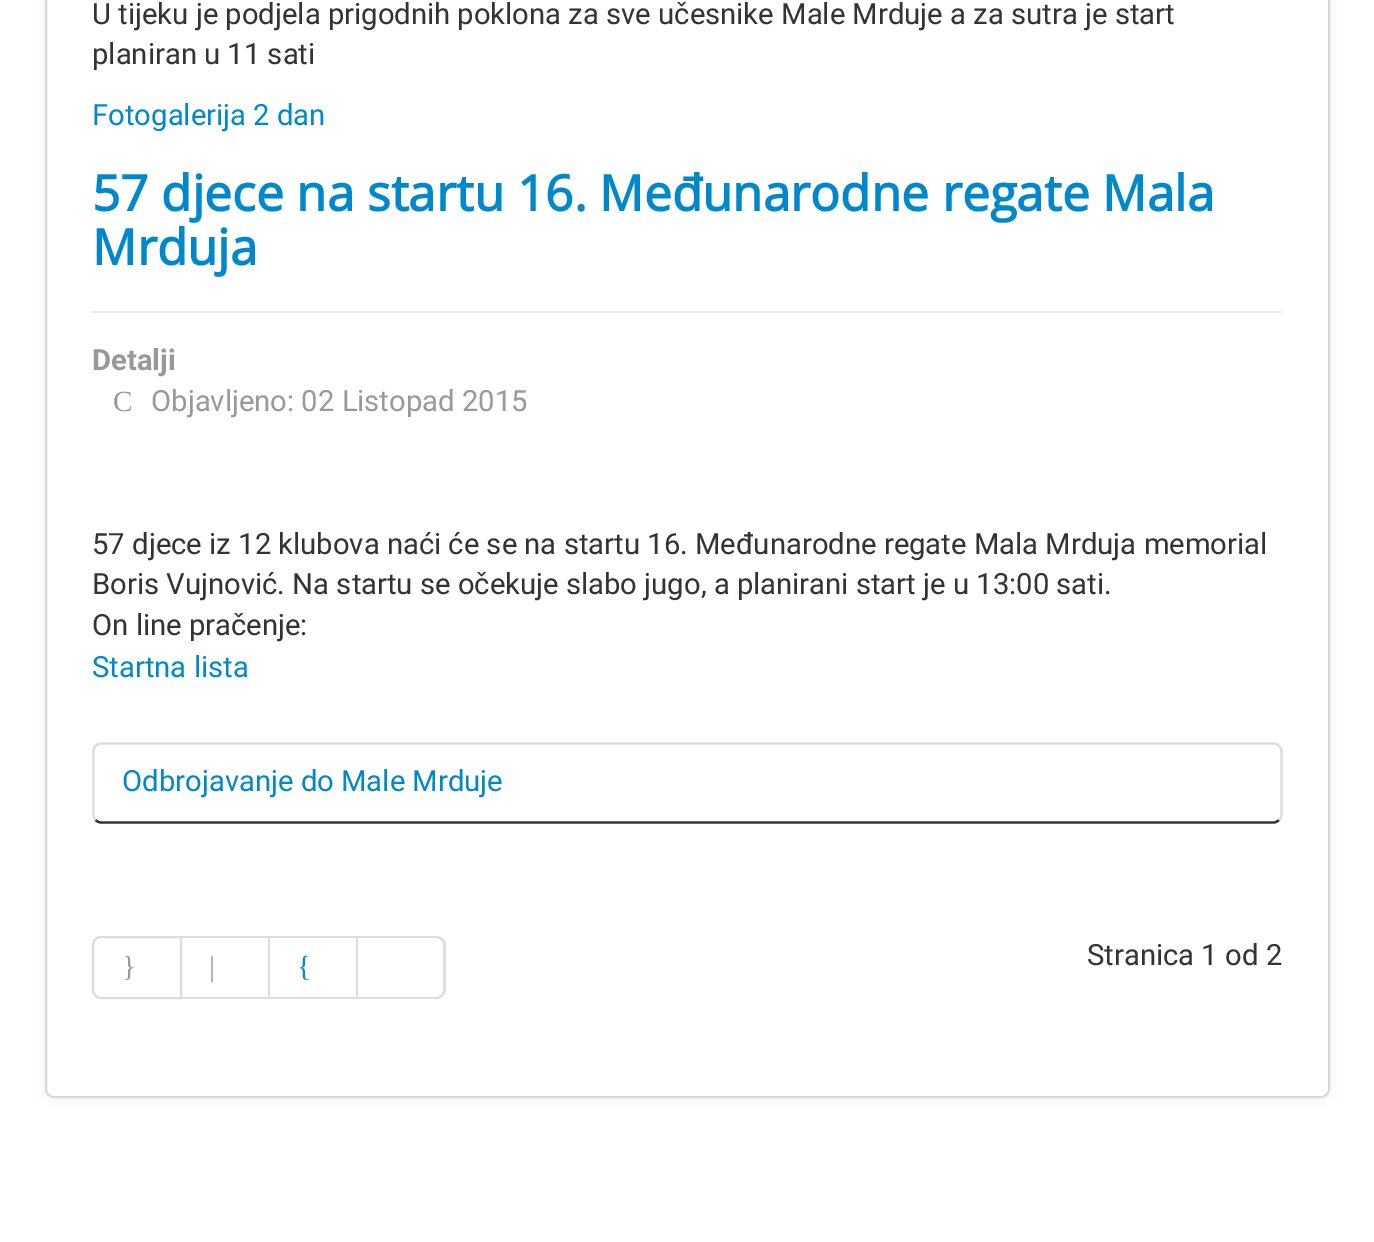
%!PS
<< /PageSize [1374 1242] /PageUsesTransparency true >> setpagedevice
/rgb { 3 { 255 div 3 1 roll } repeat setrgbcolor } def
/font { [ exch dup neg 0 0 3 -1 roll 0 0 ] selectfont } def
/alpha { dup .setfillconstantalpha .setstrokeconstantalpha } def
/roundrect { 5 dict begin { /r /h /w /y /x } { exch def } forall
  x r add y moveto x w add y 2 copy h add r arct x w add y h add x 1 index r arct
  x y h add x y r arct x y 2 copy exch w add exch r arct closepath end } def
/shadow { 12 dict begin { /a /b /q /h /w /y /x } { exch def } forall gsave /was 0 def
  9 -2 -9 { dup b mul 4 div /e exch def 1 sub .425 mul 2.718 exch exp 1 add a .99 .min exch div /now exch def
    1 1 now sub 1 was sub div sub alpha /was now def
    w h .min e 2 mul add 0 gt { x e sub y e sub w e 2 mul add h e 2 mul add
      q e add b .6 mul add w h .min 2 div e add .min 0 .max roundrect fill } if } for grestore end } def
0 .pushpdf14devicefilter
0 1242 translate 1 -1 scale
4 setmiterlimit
255 255 255 rgb
0 0 1374 1242 rectfill
0 0 0 rgb
45 -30 1285 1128 9 7 0.05 shadow
255 255 255 rgb
46 -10 1283 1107 8 roundrect gsave fill grestore
217 217 217 rgb
2 setlinewidth
stroke
238 238 238 rgb
92 311 1191 2 rectfill
51 51 51 rgb
2.2 setlinewidth
1279 820 moveto 1277.5 821.5 1275.5 822.5 1273.5 822.5 curveto 101 822.5 lineto 99 822.5 97 821.5 95.5 820 curveto stroke
221 221 221 rgb
95.5 820 moveto 94 818.5 93.5 816.5 93.5 814.5 curveto 93.5 751.5 lineto 93.5 749.5 94 747.5 95.5 746 curveto 97 744.5 99 743.5 101 743.5 curveto 1273.5 743.5 lineto 1275.5 743.5 1277.5 744.5 1279 746 curveto 1280.5 747.5 1281.5 749.5 1281.5 751.5 curveto 1281.5 814.5 lineto 1281.5 816.5 1280.5 818.5 1279 820 curveto stroke
2 setlinewidth
101 937 moveto 181 937 lineto 181 998 lineto 101 998 lineto 96.5 998 93 994.5 93 990 curveto 93 945 lineto 93 940.5 96.5 937 101 937 curveto closepath stroke
[
  [182 936 176 2 221 221 221]
  [268 936 2 63 221 221 221]
  [182 997 88 2 221 221 221]
  [356 936 2 63 221 221 221]
  [270 997 88 2 221 221 221]
] { aload pop rgb rectfill } forall
358 936 moveto 436 936 lineto 441 936 446 940 446 945 curveto 446 990 lineto 446 995 441 999 436 999 curveto 358 999 lineto closepath 358 938 moveto 436 938 lineto 440 938 443 941 443 945 curveto 443 990 lineto 443 994 440 997 436 997 curveto 358 997 lineto closepath eofill
/Roboto-Regular 29.25 font
51 51 51 rgb
92 24 moveto (U tijeku je podjela prigodnih poklona za sve učesnike Male Mrduje a za sutra je start) show
92 64 moveto (planiran u 11 sati) show
0 136 204 rgb
92 125 moveto (Fotogalerija 2 dan) show
/OpenSans-Bold 49.5 font
92 211 moveto (57 djece na startu 16. Međunarodne regate Mala) show
92 265 moveto (Mrduja) show
/Roboto-Bold 29.25 font
153 153 153 rgb
92 370 moveto (Detalji) show
/LiberationSerif-Regular 29.25 font
113 411 moveto (C) show
/Roboto-Regular 29.25 font
151 411 moveto (Objavljeno: 02 Listopad 2015) show
51 51 51 rgb
[
  [(57 djece iz 12 klubova naći će se na startu 16. Međunarodne regate Mala Mrduja memorial) 92 554]
  [(Boris Vujnović. Na startu se očekuje slabo jugo, a planirani start je u 13:00 sati.) 92 594]
  [(On line pračenje:) 92 635]
] { aload pop moveto show } forall
0 136 204 rgb
92 677 moveto (Startna lista) show
122 791 moveto (Odbrojavanje do Male Mrduje) show
/LiberationSerif-Regular 29.25 font
153 153 153 rgb
122 976 moveto (}) show
209 976 moveto (|) show
0 136 204 rgb
297 976 moveto ({) show
/Roboto-Regular 29.25 font
51 51 51 rgb
1087 965 moveto (Stranica 1 od 2) show
.poppdf14devicefilter showpage
